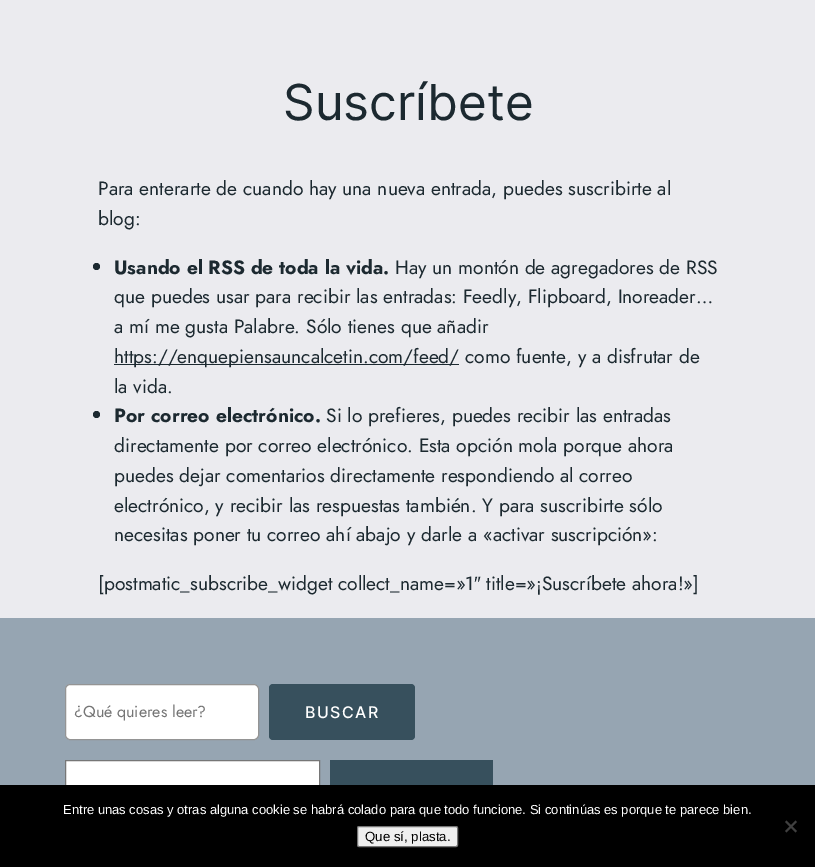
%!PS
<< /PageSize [815 867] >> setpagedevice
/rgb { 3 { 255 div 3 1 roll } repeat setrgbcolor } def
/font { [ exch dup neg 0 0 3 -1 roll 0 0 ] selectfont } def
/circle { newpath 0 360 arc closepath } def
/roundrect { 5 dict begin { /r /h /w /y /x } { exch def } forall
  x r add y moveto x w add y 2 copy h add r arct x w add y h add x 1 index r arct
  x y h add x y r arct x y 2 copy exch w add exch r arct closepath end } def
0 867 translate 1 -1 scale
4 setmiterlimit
235 235 239 rgb
0 0 815 867 rectfill
28 41 48 rgb
96.5 266.5 3.5 circle fill
114 364 345 1 rectfill
96.5 414.5 3.5 circle fill
150 165 178 rgb
0 618 815 167 rectfill
255 255 255 rgb
65.5 684.5 193 55 4.5 roundrect gsave fill grestore
148 148 148 rgb
stroke
55 80 93 rgb
269 684 146 56 4 roundrect fill
255 255 255 rgb
66 761 253 24 rectfill
118 118 118 rgb
65.5 760.5 254 51 rectstroke
55 80 93 rgb
330 760 163 25 rectfill
0 0 0 rgb
0 785 815 82 rectfill
64 64 64 rgb
795.5 820.5 moveto 797 822 lineto 786.5 832.5 lineto 785 831 lineto closepath fill
785 822 moveto 786.5 820.5 lineto 797 831 lineto 795.5 832.5 lineto closepath fill
239 239 239 rgb
357.5 826.5 100 20 1.5 roundrect gsave fill grestore
118 118 118 rgb
stroke
/Inter-Regular 49.5 font
28 41 48 rgb
283 120 moveto (Suscríbete) show
/Jost-Regular 19.2 font
98 195 moveto (Para enterarte de cuando hay una nueva entrada, puedes suscribirte al) show
98 225 moveto (blog:) show
/Jost-Bold 19.2 font
114 274 moveto (Usando el RSS de toda la vida.) show
/Jost-Regular 19.2 font
[
  [(Hay un montón de agregadores de RSS) 395 274]
  [(que puedes usar para recibir las entradas: Feedly, Flipboard, Inoreader…) 114 303]
  [(a mí me gusta Palabre. Sólo tienes que añadir) 114 333]
  [(https://enquepiensauncalcetin.com/feed/ como fuente, y a disfrutar de) 114 363]
  [(la vida.) 114 393]
] { aload pop moveto show } forall
/Jost-Bold 19.2 font
114 422 moveto (Por correo electrónico.) show
/Jost-Regular 19.2 font
[
  [(Si lo prefieres, puedes recibir las entradas) 326 422]
  [(directamente por correo electrónico. Esta opción mola porque ahora) 114 452]
  [(puedes dejar comentarios directamente respondiendo al correo) 114 482]
  [(electrónico, y recibir las respuestas también. Y para suscribirte sólo) 114 512]
  [(necesitas poner tu correo ahí abajo y darle a «activar suscripción»:) 114 541]
  [([postmatic_subscribe_widget collect_name=»1) 98 590]
] { aload pop moveto show } forall
/LiberationSans-Regular 19.2 font
474 590 moveto (″) show
/Jost-Regular 19.2 font
486 590 moveto (title=»¡Suscríbete ahora!»]) show
/Jost-Regular 16 font
117 117 117 rgb
74 717 moveto (¿Qué quieres leer?) show
/Inter-Medium 16 font
255 255 255 rgb
305 718 moveto 1.5 0 (BUSCAR) ashow
/LiberationSans-Regular 13 font
63 814 moveto (Entre unas cosas y otras alguna cookie se habrá colado para que todo funcione. Si continúas es porque te parece bien.) show
/LiberationSans-Regular 13.25 font
0 0 0 rgb
365 841 moveto (Que sí, plasta.) show
showpage
